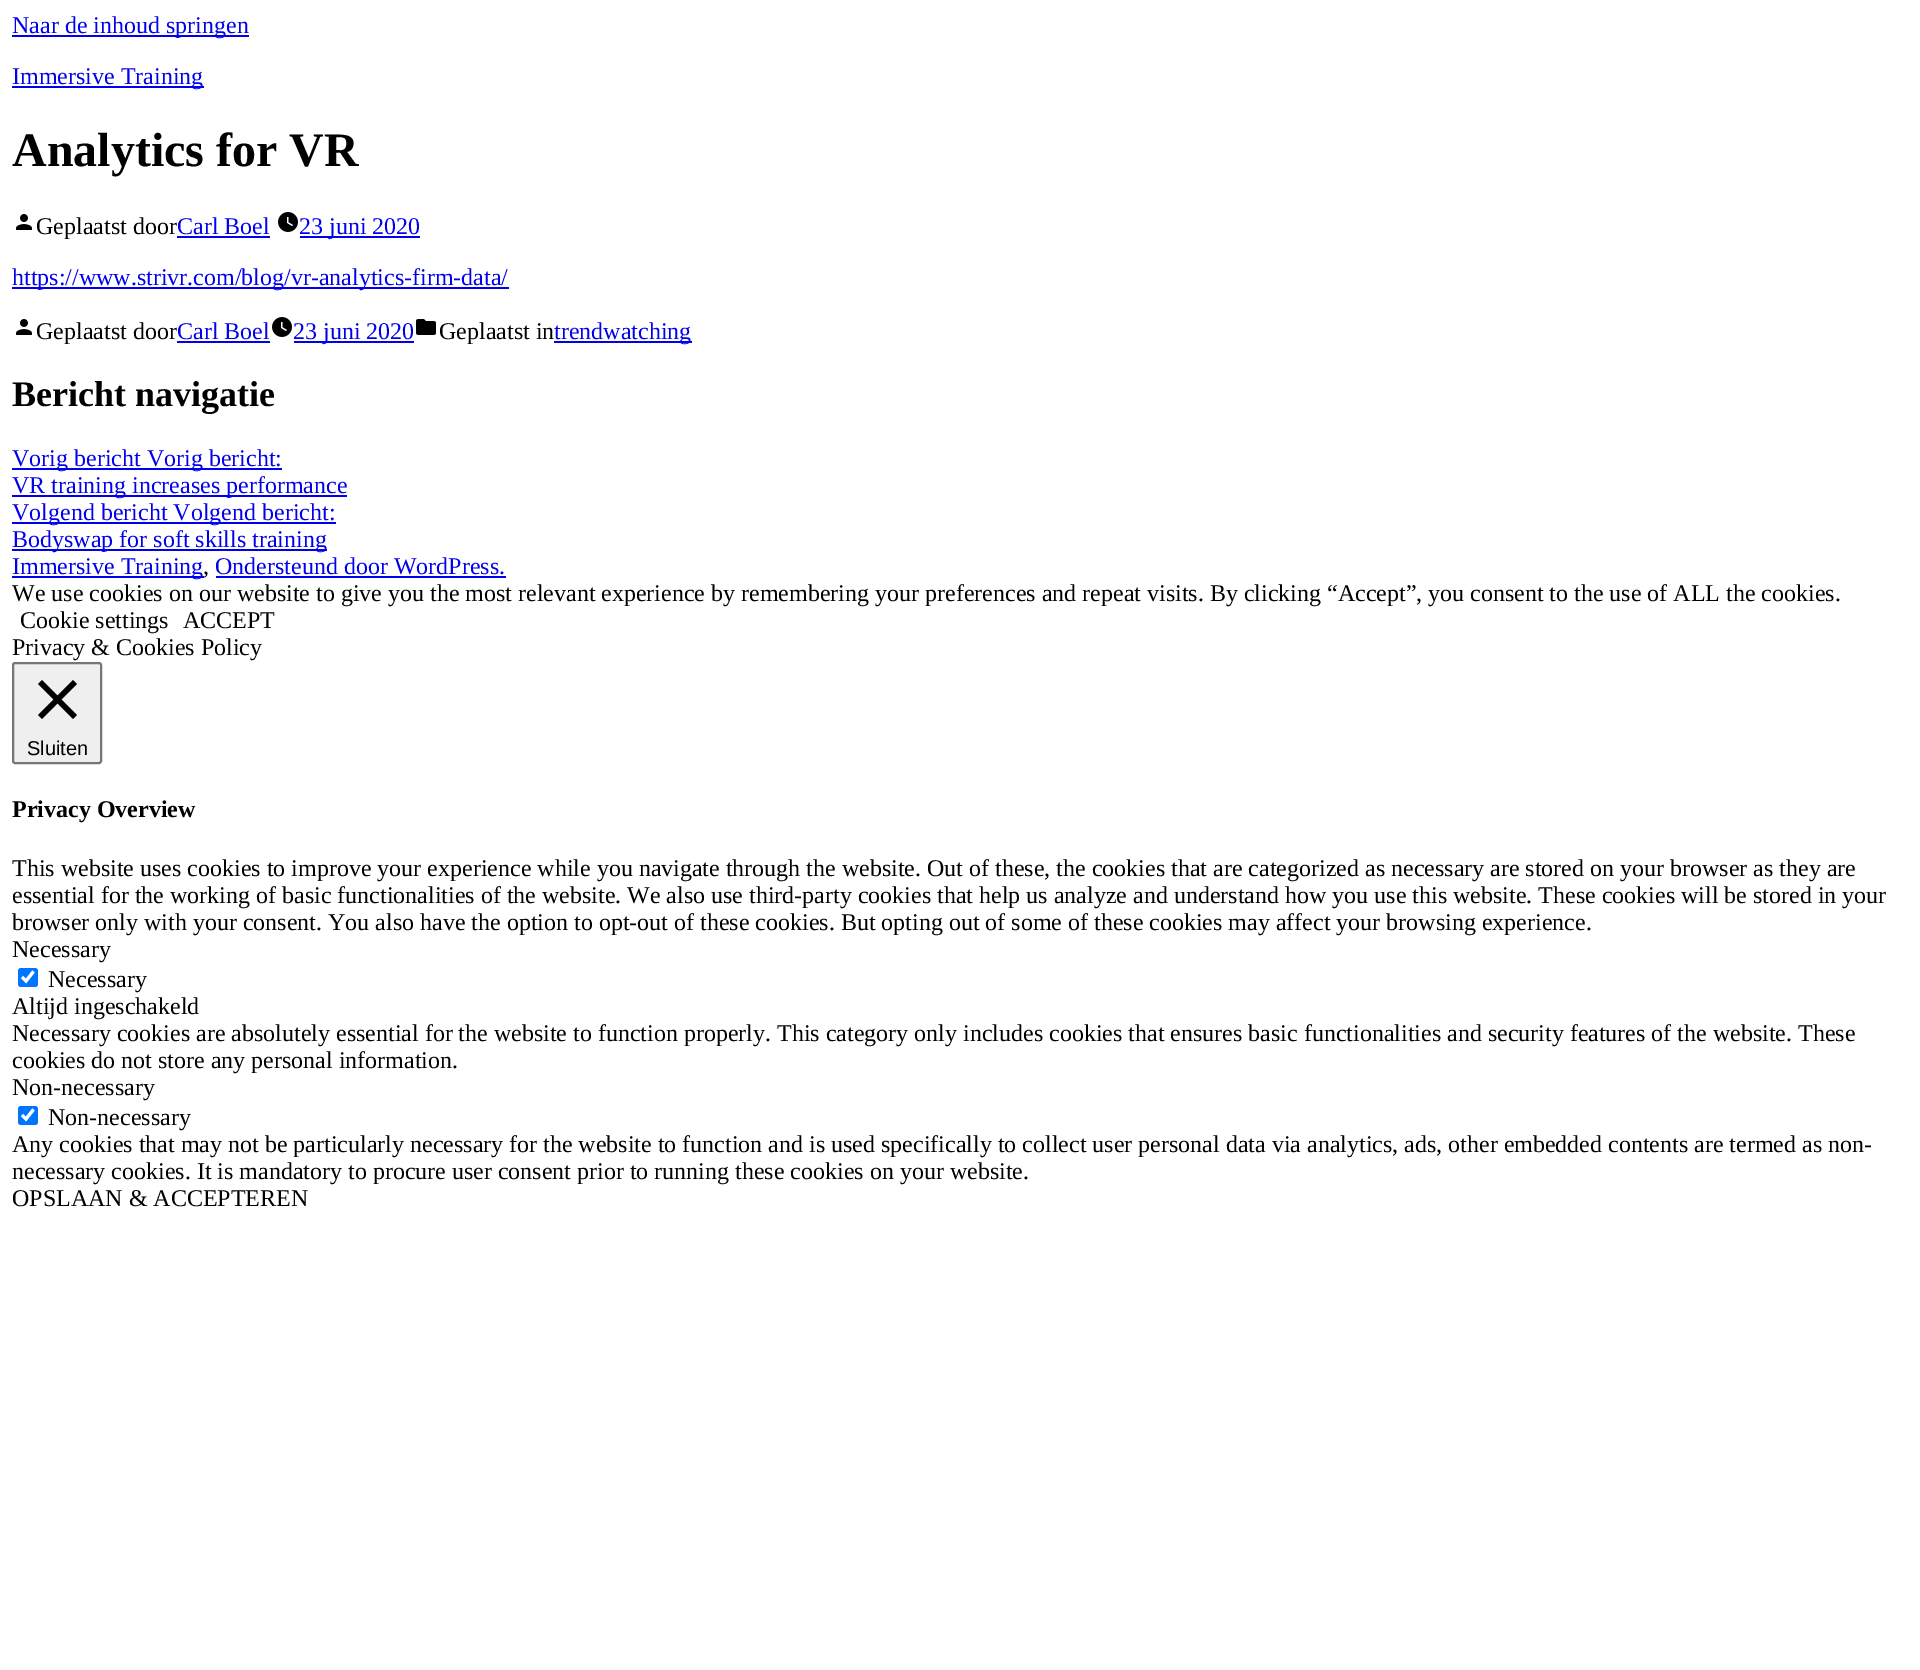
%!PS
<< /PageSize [1920 1670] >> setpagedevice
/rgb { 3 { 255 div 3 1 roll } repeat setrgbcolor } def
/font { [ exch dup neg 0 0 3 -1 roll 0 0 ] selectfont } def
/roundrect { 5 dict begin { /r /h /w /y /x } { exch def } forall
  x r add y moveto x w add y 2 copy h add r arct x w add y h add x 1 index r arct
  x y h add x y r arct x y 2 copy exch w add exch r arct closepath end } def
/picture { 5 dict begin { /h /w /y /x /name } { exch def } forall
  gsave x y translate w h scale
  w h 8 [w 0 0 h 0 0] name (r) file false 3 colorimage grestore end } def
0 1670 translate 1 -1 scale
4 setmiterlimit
255 255 255 rgb
0 0 1920 1670 rectfill
0 0 238 rgb
12 35 237 2 rectfill
12 86 192 2 rectfill
(img/1.rgb) 16 214 16 16 picture
177 236 93 2 rectfill
(img/2.rgb) 278 212 20 20 picture
300 236 120 2 rectfill
12 287 497 2 rectfill
(img/1.rgb) 16 319 16 16 picture
177 341 93 2 rectfill
(img/2.rgb) 272 317 20 20 picture
294 341 120 2 rectfill
(img/3.rgb) 416 319 20 16 picture
[
  [554 341 138 2 0 0 238]
  [12 468 270 2 0 0 238]
  [12 495 335 2 0 0 238]
  [12 522 324 2 0 0 238]
  [12 549 315 2 0 0 238]
  [12 576 192 2 0 0 238]
  [216 576 290 2 0 0 238]
] { aload pop rgb rectfill } forall
239 239 239 rgb
13 663 88 100 2 roundrect gsave fill grestore
118 118 118 rgb
2 setlinewidth
stroke
0 0 0 rgb
77 684 moveto 73 680 lineto 57.5 695.5 lineto 42 680 lineto 38 684 lineto 53.5 699.5 lineto 38 715 lineto 42 719 lineto 57.5 703.5 lineto 73 719 lineto 77 715 lineto 61.5 699.5 lineto closepath fill
0 117 255 rgb
18 968 20 19 3 roundrect fill
255 255 255 rgb
3.1 setlinewidth
22 977 moveto 26 981 lineto 33.5 971.5 lineto stroke
0 117 255 rgb
18 1106 20 19 3 roundrect fill
255 255 255 rgb
22 1115 moveto 26 1119 lineto 33.5 1109.5 lineto stroke
/LiberationSerif-Regular 24 font
0 0 238 rgb
12 33 moveto (Naar de inhoud springen) show
12 84 moveto (Immersive Training) show
/LiberationSerif-Bold 48 font
0 0 0 rgb
12 166 moveto (Analytics for VR) show
/LiberationSerif-Regular 24 font
36 234 moveto (Geplaatst door) show
0 0 238 rgb
[
  [(Carl Boel) 177 234]
  [(23 juni 2020) 299 234]
  [(https://www.strivr.com/blog/vr-analytics-firm-data/) 12 285]
] { aload pop moveto show } forall
0 0 0 rgb
36 339 moveto (Geplaatst door) show
0 0 238 rgb
177 339 moveto (Carl Boel) show
293 339 moveto (23 juni 2020) show
0 0 0 rgb
439 339 moveto (Geplaatst in) show
0 0 238 rgb
554 339 moveto (trendwatching) show
/LiberationSerif-Bold 36 font
0 0 0 rgb
12 406 moveto (Bericht navigatie) show
/LiberationSerif-Regular 24 font
0 0 238 rgb
[
  [(Vorig bericht Vorig bericht:) 12 466]
  [(VR training increases performance) 12 493]
  [(Volgend bericht Volgend bericht:) 12 520]
  [(Bodyswap for soft skills training) 12 547]
  [(Immersive Training) 12 574]
] { aload pop moveto show } forall
0 0 0 rgb
203 574 moveto (,) show
0 0 238 rgb
215 574 moveto (Ondersteund door WordPress.) show
0 0 0 rgb
[
  [(We use cookies on our website to give you the most relevant experience by remembering your preferences and repeat visits. By clicking “Accept”, you consent to the use of ALL the cookies.) 12 601]
  [(Cookie settings) 20 628]
  [(ACCEPT) 183 628]
  [(Privacy & Cookies Policy) 12 655]
] { aload pop moveto show } forall
/LiberationSans-Regular 20 font
27 755 moveto (Sluiten) show
/LiberationSerif-Bold 24 font
12 817 moveto (Privacy Overview) show
/LiberationSerif-Regular 24 font
[
  [(This website uses cookies to improve your experience while you navigate through the website. Out of these, the cookies that are categorized as necessary are stored on your browser as they are) 12 876]
  [(essential for the working of basic functionalities of the website. We also use third-party cookies that help us analyze and understand how you use this website. These cookies will be stored in your) 12 903]
  [(browser only with your consent. You also have the option to opt-out of these cookies. But opting out of some of these cookies may affect your browsing experience.) 12 930]
  [(Necessary) 12 957]
  [(Necessary) 48 987]
  [(Altijd ingeschakeld) 12 1014]
  [(Necessary cookies are absolutely essential for the website to function properly. This category only includes cookies that ensures basic functionalities and security features of the website. These) 12 1041]
  [(cookies do not store any personal information.) 12 1068]
  [(Non-necessary) 12 1095]
  [(Non-necessary) 48 1125]
  [(Any cookies that may not be particularly necessary for the website to function and is used specifically to collect user personal data via analytics, ads, other embedded contents are termed as non-) 12 1152]
  [(necessary cookies. It is mandatory to procure user consent prior to running these cookies on your website.) 12 1179]
  [(OPSLAAN & ACCEPTEREN) 12 1206]
] { aload pop moveto show } forall
showpage
